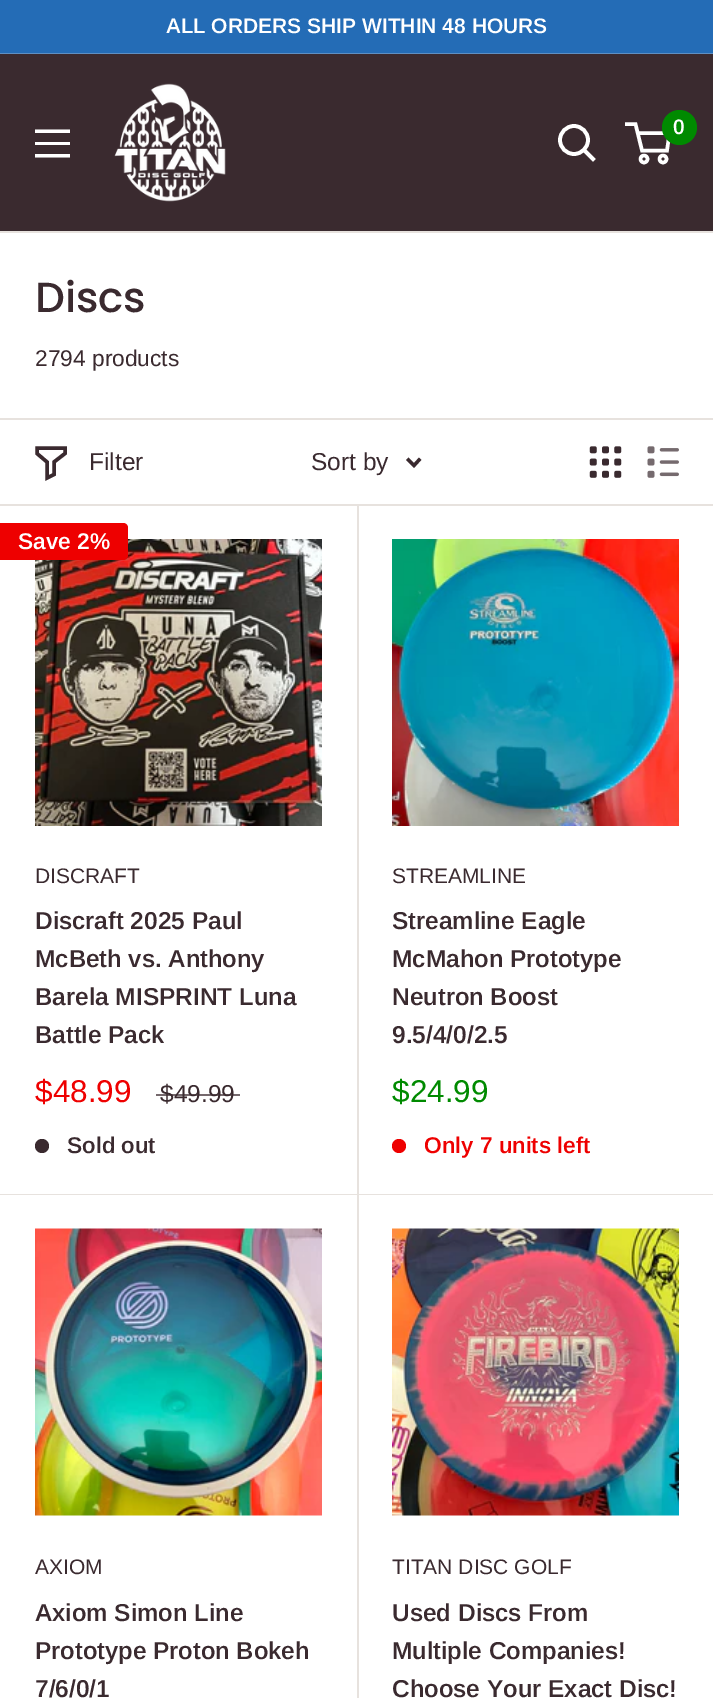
%!PS
<< /PageSize [713 1698] /PageUsesTransparency true >> setpagedevice
/rgb { 3 { 255 div 3 1 roll } repeat setrgbcolor } def
/font { [ exch dup neg 0 0 3 -1 roll 0 0 ] selectfont } def
/alpha { dup .setfillconstantalpha .setstrokeconstantalpha } def
/circle { newpath 0 360 arc closepath } def
/picture { 5 dict begin { /h /w /y /x /name } { exch def } forall
  gsave x y translate w h scale
  w h 8 [w 0 0 h 0 0] name (r) file false 3 colorimage grestore end } def
0 .pushpdf14devicefilter
0 1698 translate 1 -1 scale
4 setmiterlimit
36 108 182 rgb
0 0 713 1698 rectfill
95 143 194 rgb
0 53 713 1 rectfill
58 42 47 rgb
0 54 713 177 rectfill
(img/1.rgb) 114 83 112 119 picture
255 255 255 rgb
3.7 setlinewidth
2 setlinecap
593 159 moveto 584 150 lineto stroke
0 setlinecap
574 140 14 circle stroke
3.5 setlinewidth
644 159 3.5 circle stroke
663 159 3.5 circle stroke
637.5 133 moveto 669.5 133 lineto 667 150.5 lineto 642 150.5 lineto 635.5 124 lineto 625 124 lineto stroke
0 138 0 rgb
679.5 127.5 17.5 circle fill
255 255 255 rgb
35 154 moveto 70 154 lineto 70 157.5 lineto 35 157.5 lineto closepath 35 129.5 moveto 70 129.5 lineto 70 133 lineto 35 133 lineto closepath 35 142 moveto 70 142 lineto 70 145 lineto 35 145 lineto closepath eofill
[
  [0 233 713 1465 255 255 255]
  [0 231 713 2 231 226 222]
  [0 418 713 2 231 226 222]
] { aload pop rgb rectfill } forall
2 1194 moveto 359 1194 lineto 359 504 lineto 357 504 lineto 357 1194 lineto closepath fill
0 504 713 2 rectfill
58 42 47 rgb
2 setlinecap
65 453.5 moveto 54 462 lineto 54 474.5 lineto 47 478 lineto 47 462 lineto 37 453.5 lineto 37 448 lineto 65 448 lineto closepath stroke
3.3 setlinewidth
419 460 moveto 414 465.5 lineto 408.5 460 lineto stroke
(img/2.rgb) 589 446 33 32 picture
(img/3.rgb) 647 446 32 32 picture
231 226 222 rgb
0 1194 713 1 rectfill
(img/4.rgb) 35 539 287 287 picture
238 0 0 rgb
0 523 moveto 123 523 lineto 126 523 128 525 128 528 curveto 128 555 lineto 128 558 126 560 123 560 curveto 0 560 lineto closepath fill
58 42 47 rgb
42 1146 7 circle fill
(img/5.rgb) 392 539 287 287 picture
238 0 0 rgb
399 1146 7 circle fill
(img/6.rgb) 35 1228 287 288 picture
231 226 222 rgb
2 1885 moveto 359 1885 lineto 359 1194 lineto 357 1194 lineto 357 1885 lineto closepath fill
(img/7.rgb) 392 1228 287 288 picture
/Arimo-SemiBold 21 font
255 255 255 rgb
166 33 moveto (ALL ORDERS SHIP WITHIN 48 HOURS) show
673 134 moveto (0) show
/Poppins-Medium 42 font
58 42 47 rgb
35 312 moveto (Discs) show
/Arimo-Regular 22.75 font
35 366 moveto (2794 products) show
/Arimo-Regular 24.5 font
89 470 moveto (Filter) show
311 470 moveto (Sort by) show
/Arimo-SemiBold 22.75 font
255 255 255 rgb
18 549 moveto (Save 2%) show
/Arimo-Regular 21 font
58 42 47 rgb
35 883 moveto (DISCRAFT) show
/Arimo-SemiBold 24.5 font
[
  [(Discraft 2025 Paul) 35 929]
  [(McBeth vs. Anthony) 35 967]
  [(Barela MISPRINT Luna) 35 1005]
  [(Battle Pack) 35 1043]
] { aload pop moveto show } forall
/Arimo-Regular 31.5 font
238 0 0 rgb
35 1102 moveto ($48.99) show
/Arimo-Regular 24.5 font
58 42 47 rgb
160 1102 moveto ($49.99) show
0.7 alpha
156 1094 84 2 rectfill
/Arimo-SemiBold 22.75 font
1 alpha
67 1153 moveto (Sold out) show
/Arimo-Regular 21 font
392 883 moveto (STREAMLINE) show
/Arimo-SemiBold 24.5 font
[
  [(Streamline Eagle) 392 929]
  [(McMahon Prototype) 392 967]
  [(Neutron Boost) 392 1005]
  [(9.5/4/0/2.5) 392 1043]
] { aload pop moveto show } forall
/Arimo-Regular 31.5 font
0 138 0 rgb
392 1102 moveto ($24.99) show
/Arimo-SemiBold 22.75 font
238 0 0 rgb
424 1153 moveto (Only 7 units left) show
/Arimo-Regular 21 font
58 42 47 rgb
35 1574 moveto (AXIOM) show
/Arimo-SemiBold 24.5 font
[
  [(Axiom Simon Line) 35 1621]
  [(Prototype Proton Bokeh) 35 1659]
  [(7/6/0/1) 35 1697]
] { aload pop moveto show } forall
/Arimo-Regular 21 font
392 1574 moveto (TITAN DISC GOLF) show
/Arimo-SemiBold 24.5 font
[
  [(Used Discs From) 392 1621]
  [(Multiple Companies!) 392 1659]
  [(Choose Your Exact Disc!) 392 1697]
] { aload pop moveto show } forall
.poppdf14devicefilter showpage
